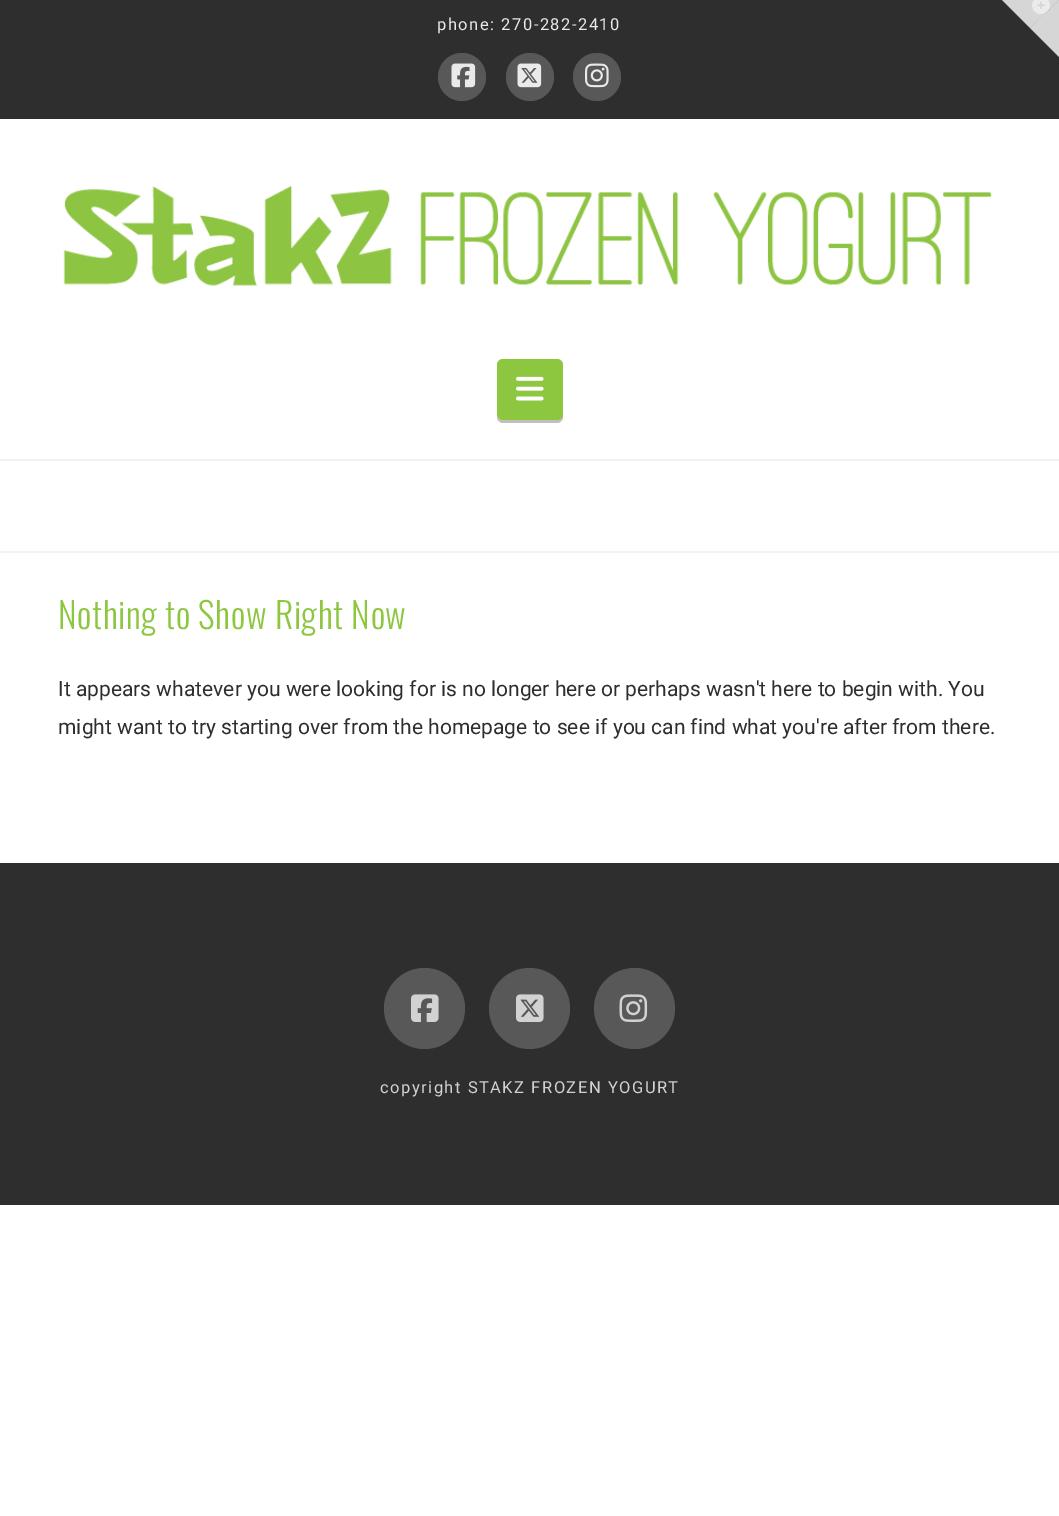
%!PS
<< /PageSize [1059 1516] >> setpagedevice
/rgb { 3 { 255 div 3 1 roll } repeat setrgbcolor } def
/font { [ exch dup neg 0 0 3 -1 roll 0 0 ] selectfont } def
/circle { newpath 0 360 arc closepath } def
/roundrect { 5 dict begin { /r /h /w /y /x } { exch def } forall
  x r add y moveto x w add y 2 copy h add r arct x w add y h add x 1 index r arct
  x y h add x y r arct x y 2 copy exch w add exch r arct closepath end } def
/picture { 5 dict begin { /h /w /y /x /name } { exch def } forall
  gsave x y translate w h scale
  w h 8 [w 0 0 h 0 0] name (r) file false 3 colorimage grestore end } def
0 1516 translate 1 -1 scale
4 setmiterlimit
255 255 255 rgb
0 0 1059 1516 rectfill
46 46 46 rgb
0 0 1059 119 rectfill
88 88 88 rgb
462 77 24 circle fill
(img/1.rgb) 451 63 25 25 picture
530 77 24 circle fill
(img/2.rgb) 517 63 25 25 picture
597 77 24 circle fill
(img/3.rgb) 585 63 24 25 picture
(img/4.rgb) 63 185 929 101 picture
191 191 191 rgb
497 416 moveto 497 417 lineto 497 420 500 423 503 423 curveto 557 423 lineto 560 423 563 420 563 417 curveto 563 368 lineto 562 366 lineto 562 414 lineto 562 417 560 420 556 420 curveto 502 420 lineto 500 420 498 419 497 416 curveto closepath fill
141 198 63 rgb
497 359 66 61 6 roundrect fill
(img/5.rgb) 516 376 28 25 picture
[
  [0 459 1059 2 242 242 242]
  [0 551 1059 2 242 242 242]
  [0 863 1059 342 46 46 46]
] { aload pop rgb rectfill } forall
88 88 88 rgb
424.5 1008.5 40.5 circle fill
(img/6.rgb) 411 994 28 28 picture
529.5 1008.5 40.5 circle fill
(img/7.rgb) 516 994 28 28 picture
634.5 1008.5 40.5 circle fill
(img/8.rgb) 619 994 29 28 picture
214 214 214 rgb
1002 0 moveto 1059 0 lineto 1030 28 lineto closepath fill
1059 0 moveto 1059 57 lineto 1030 28 lineto closepath fill
(img/9.rgb) 1032 0 18 14 picture
/Roboto-Regular 16.5 font
234 234 234 rgb
437 30 moveto 1.5 0 (phone: 270-282-2410) ashow
/Oswald-Light 35.75 font
141 198 63 rgb
58 629 moveto 0.6 0 (Nothing to Show Right Now) ashow
/Roboto-Regular 21 font
46 46 46 rgb
58 696 moveto (It appears whatever you were looking for is no longer here or perhaps wasn't here to begin with. You) show
58 734 moveto (might want to try starting over from the homepage to see if you can find what you're after from there.) show
/Roboto-Regular 16.5 font
210 210 210 rgb
380 1093 moveto 1.5 0 (copyright STAKZ FROZEN YOGURT) ashow
showpage
